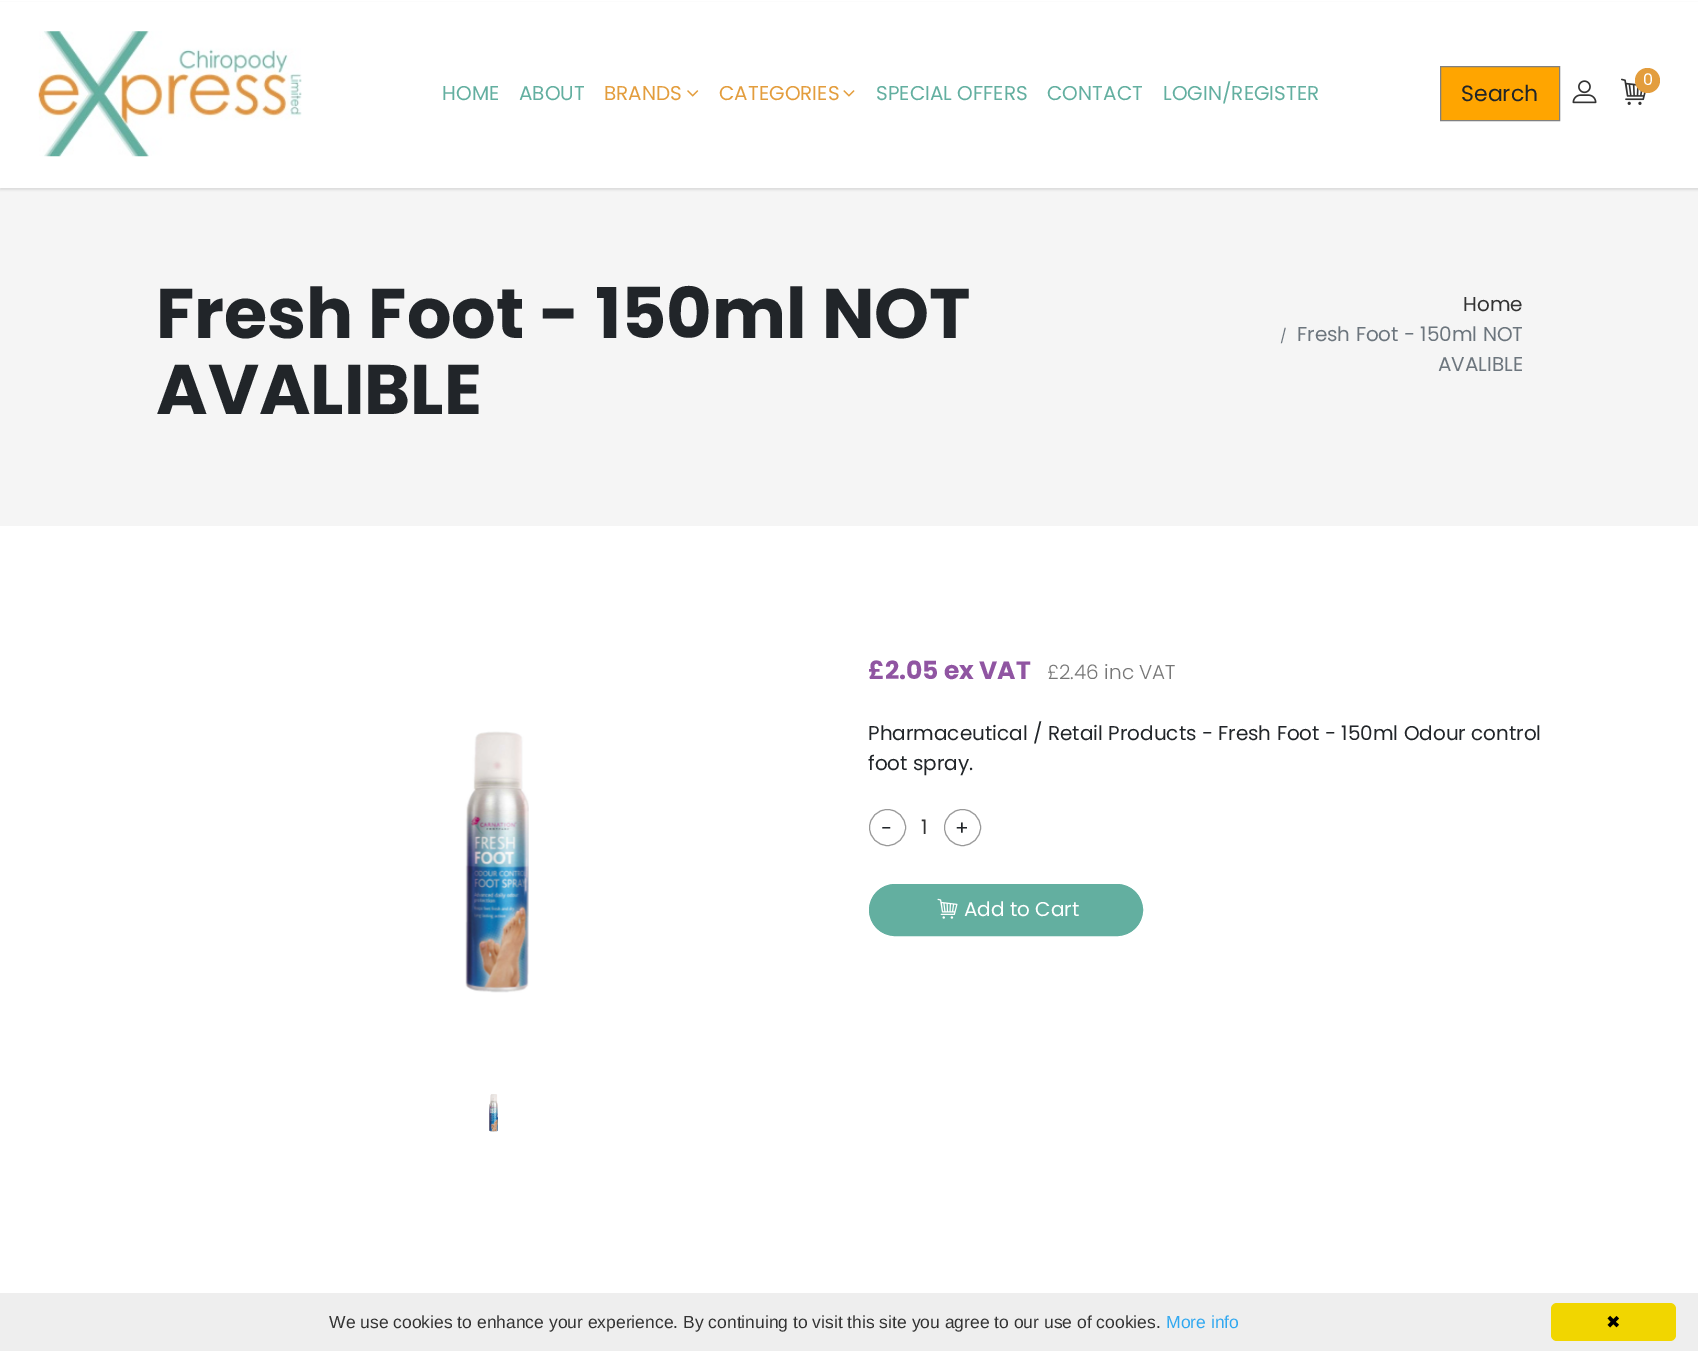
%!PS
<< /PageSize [1698 1351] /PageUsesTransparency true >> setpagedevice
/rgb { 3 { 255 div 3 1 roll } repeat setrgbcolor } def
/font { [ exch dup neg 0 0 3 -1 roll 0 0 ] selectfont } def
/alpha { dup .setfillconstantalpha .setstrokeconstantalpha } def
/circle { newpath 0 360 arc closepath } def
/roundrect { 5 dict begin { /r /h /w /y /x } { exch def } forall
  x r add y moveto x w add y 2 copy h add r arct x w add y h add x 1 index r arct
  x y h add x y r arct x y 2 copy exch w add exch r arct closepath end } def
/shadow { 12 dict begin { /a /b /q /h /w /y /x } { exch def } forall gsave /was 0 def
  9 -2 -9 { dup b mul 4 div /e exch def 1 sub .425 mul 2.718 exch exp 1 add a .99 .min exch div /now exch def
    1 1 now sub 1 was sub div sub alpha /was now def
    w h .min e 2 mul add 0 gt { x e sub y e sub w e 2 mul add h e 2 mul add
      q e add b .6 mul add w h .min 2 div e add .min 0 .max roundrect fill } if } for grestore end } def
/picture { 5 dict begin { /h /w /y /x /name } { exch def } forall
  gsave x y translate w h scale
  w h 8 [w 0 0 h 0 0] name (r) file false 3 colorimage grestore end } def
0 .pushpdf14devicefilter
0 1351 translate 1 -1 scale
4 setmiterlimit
255 255 255 rgb
0 0 1698 1351 rectfill
245 245 245 rgb
0 188 1698 338 rectfill
0 0 0 rgb
0 3 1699 187 0 1 0.1 shadow
255 255 255 rgb
0 2 1698 186 rectfill
(img/1.rgb) 38 31 264 126 picture
(img/2.rgb) 687 90 12 7 picture
(img/3.rgb) 843 90 12 7 picture
255 165 0 rgb
1440.5 66.5 moveto 1559.5 66.5 lineto 1559.5 120.5 lineto 1440.5 120.5 lineto closepath gsave fill grestore
128 128 128 rgb
stroke
(img/4.rgb) 1572 80 25 24 picture
(img/5.rgb) 1621 78 25 27 picture
227 157 61 rgb
1647.5 80.5 12.5 circle fill
(img/6.rgb) 465 731 64 262 picture
(img/7.rgb) 489 1094 9 38 picture
153 153 153 rgb
887.5 827.5 18 circle stroke
962.5 827.5 18 circle stroke
99 175 160 rgb
869.5 884.5 273 51 25.5 roundrect gsave fill grestore
stroke
(img/8.rgb) 937 898 21 21 picture
238 238 238 rgb
0 1293 1698 58 rectfill
241 214 0 rgb
1551 1303 125 38 6 roundrect fill
/Poppins-Regular 20 font
99 175 160 rgb
442 100 moveto (HOME) show
519 100 moveto (ABOUT) show
227 157 61 rgb
604 100 moveto (BRANDS) show
719 100 moveto (CATEGORIES) show
99 175 160 rgb
[
  [(SPECIAL OFFERS) 876 100]
  [(CONTACT) 1047 100]
  [(LOGIN/REGISTER) 1163 100]
] { aload pop moveto show } forall
/Poppins-Regular 22 font
33 37 41 rgb
1461 101 moveto (Search) show
/Poppins-Regular 16 font
255 255 255 rgb
1643 85 moveto (0) show
/Poppins-Bold 70 font
33 37 41 rgb
156 338 moveto (Fresh Foot - 150ml NOT) show
156 414 moveto (AVALIBLE) show
/Poppins-Regular 20 font
51 51 51 rgb
1463 311 moveto (Home) show
/Poppins-Regular 14 font
108 117 125 rgb
1280 341 moveto (/) show
/Poppins-Regular 20 font
1297 341 moveto (Fresh Foot - 150ml NOT) show
1438 371 moveto (AVALIBLE) show
/Poppins-Bold 25 font
144 85 162 rgb
868 679 moveto (£2.05 ex VAT) show
/Poppins-Light 20 font
119 119 119 rgb
1047 679 moveto (£2.46 inc VAT) show
/Poppins-Regular 20 font
33 37 41 rgb
[
  [(Pharmaceutical / Retail Products - Fresh Foot - 150ml Odour control) 868 740]
  [(foot spray.) 868 770]
  [(-) 881 835]
] { aload pop moveto show } forall
51 51 51 rgb
921 834 moveto (1) show
33 37 41 rgb
955 835 moveto (+) show
255 255 255 rgb
964 916 moveto (Add to Cart) show
/LiberationSans-Regular 17.5 font
51 51 51 rgb
329 1328 moveto (We use cookies to enhance your experience. By continuing to visit this site you agree to our use of cookies.) show
49 168 240 rgb
1166 1328 moveto (More info) show
/DejaVuSans-Regular 17.5 font
0 0 0 rgb
1606 1328 moveto (✖) show
.poppdf14devicefilter showpage
